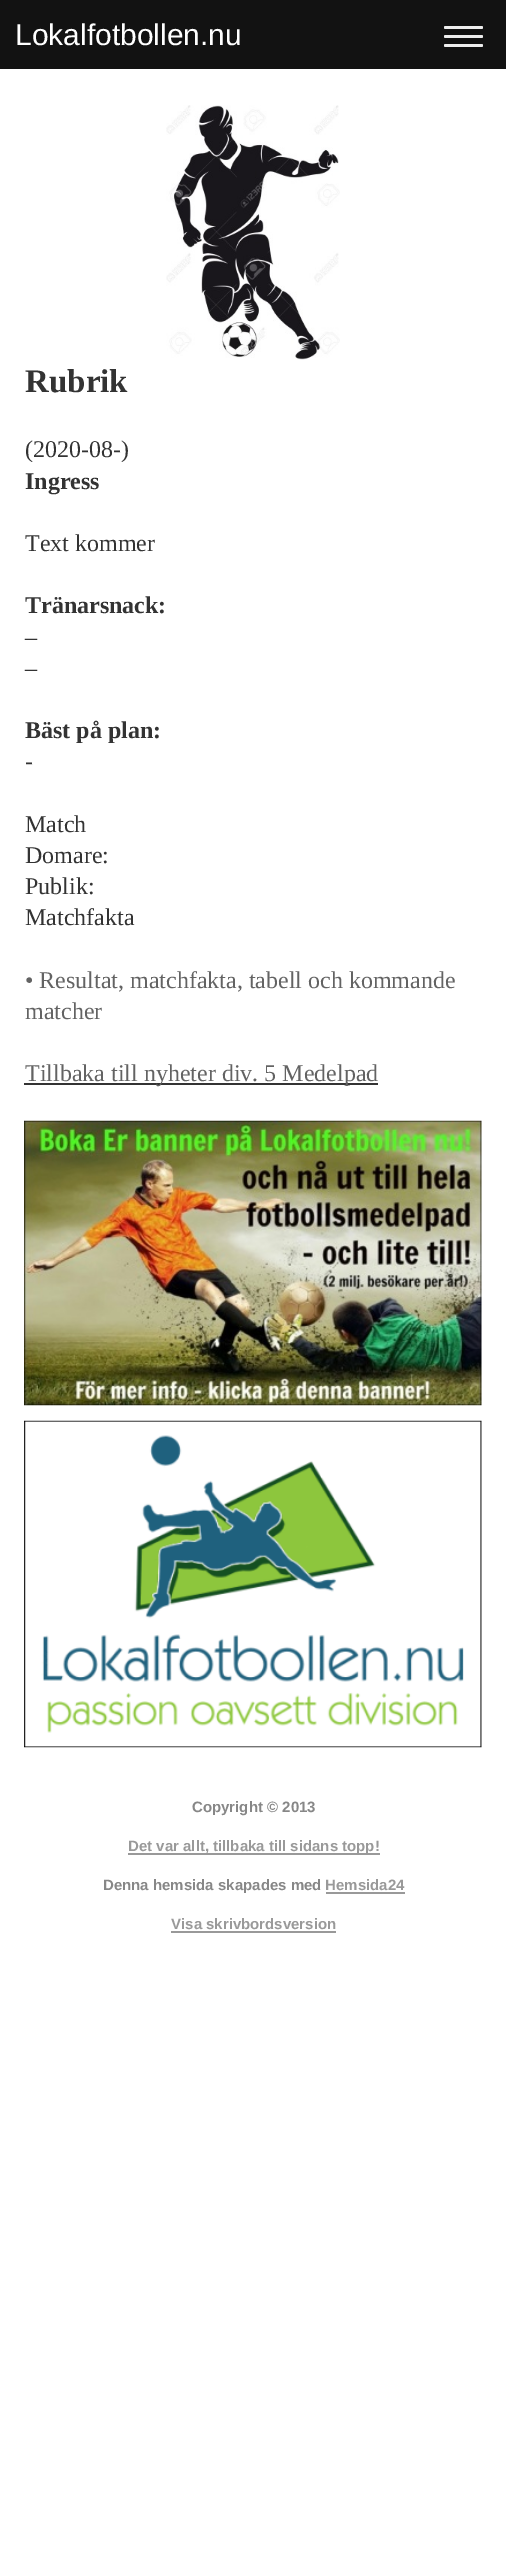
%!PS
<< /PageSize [506 2558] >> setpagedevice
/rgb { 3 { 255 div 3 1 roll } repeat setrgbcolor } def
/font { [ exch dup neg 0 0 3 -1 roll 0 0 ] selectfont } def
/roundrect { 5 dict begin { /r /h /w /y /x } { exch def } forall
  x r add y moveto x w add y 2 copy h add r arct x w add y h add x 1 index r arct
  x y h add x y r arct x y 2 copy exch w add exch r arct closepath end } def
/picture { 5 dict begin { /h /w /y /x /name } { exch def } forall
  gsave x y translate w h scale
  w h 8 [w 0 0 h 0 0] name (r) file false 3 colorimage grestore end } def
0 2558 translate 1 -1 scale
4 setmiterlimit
255 255 255 rgb
0 0 506 2558 rectfill
18 18 18 rgb
0 0 506 69 rectfill
238 238 238 rgb
444 26 39 3 1.5 roundrect fill
444 35 39 3 1.5 roundrect fill
444 44 39 3 1.5 roundrect fill
(img/1.rgb) 166 105 174 255 picture
51 51 51 rgb
24 1083 354 2 rectfill
(img/2.rgb) 24 1120 458 286 picture
(img/3.rgb) 24 1420 458 328 picture
[
  [128 1853 252 2 153 153 153]
  [326 1892 79 2 153 153 153]
  [171 1931 165 2 153 153 153]
] { aload pop rgb rectfill } forall
/LiberationSans-Regular 30 font
255 255 255 rgb
15 45 moveto (Lokalfotbollen.nu) show
/LiberationSerif-Bold 33 font
51 51 51 rgb
25 392 moveto (Rubrik) show
/LiberationSerif-Regular 24 font
25 457 moveto (\(2020-08-\)) show
/LiberationSerif-Bold 24 font
25 489 moveto (Ingress) show
/LiberationSerif-Regular 24 font
25 551 moveto (Text kommer) show
/LiberationSerif-Bold 24 font
25 613 moveto (Tränarsnack:) show
/LiberationSerif-Regular 24 font
25 645 moveto (–) show
25 676 moveto (–) show
/LiberationSerif-Bold 24 font
25 738 moveto (Bäst på plan:) show
/LiberationSerif-Regular 24 font
[
  [(-) 25 769]
  [(Match) 25 832]
  [(Domare:) 25 863]
  [(Publik:) 25 894]
  [(Matchfakta) 25 925]
] { aload pop moveto show } forall
99 99 99 rgb
[
  [(• Resultat, matchfakta, tabell och kommande) 25 988]
  [(matcher) 25 1019]
  [(Tillbaka till nyheter div. 5 Medelpad) 25 1081]
] { aload pop moveto show } forall
/LiberationSans-Bold 15 font
135 135 135 rgb
192 1812 moveto (Copyright © 2013) show
153 153 153 rgb
128 1851 moveto (Det var allt, tillbaka till sidans topp!) show
135 135 135 rgb
103 1890 moveto (Denna hemsida skapades med) show
153 153 153 rgb
325 1890 moveto (Hemsida24) show
171 1929 moveto (Visa skrivbordsversion) show
showpage
